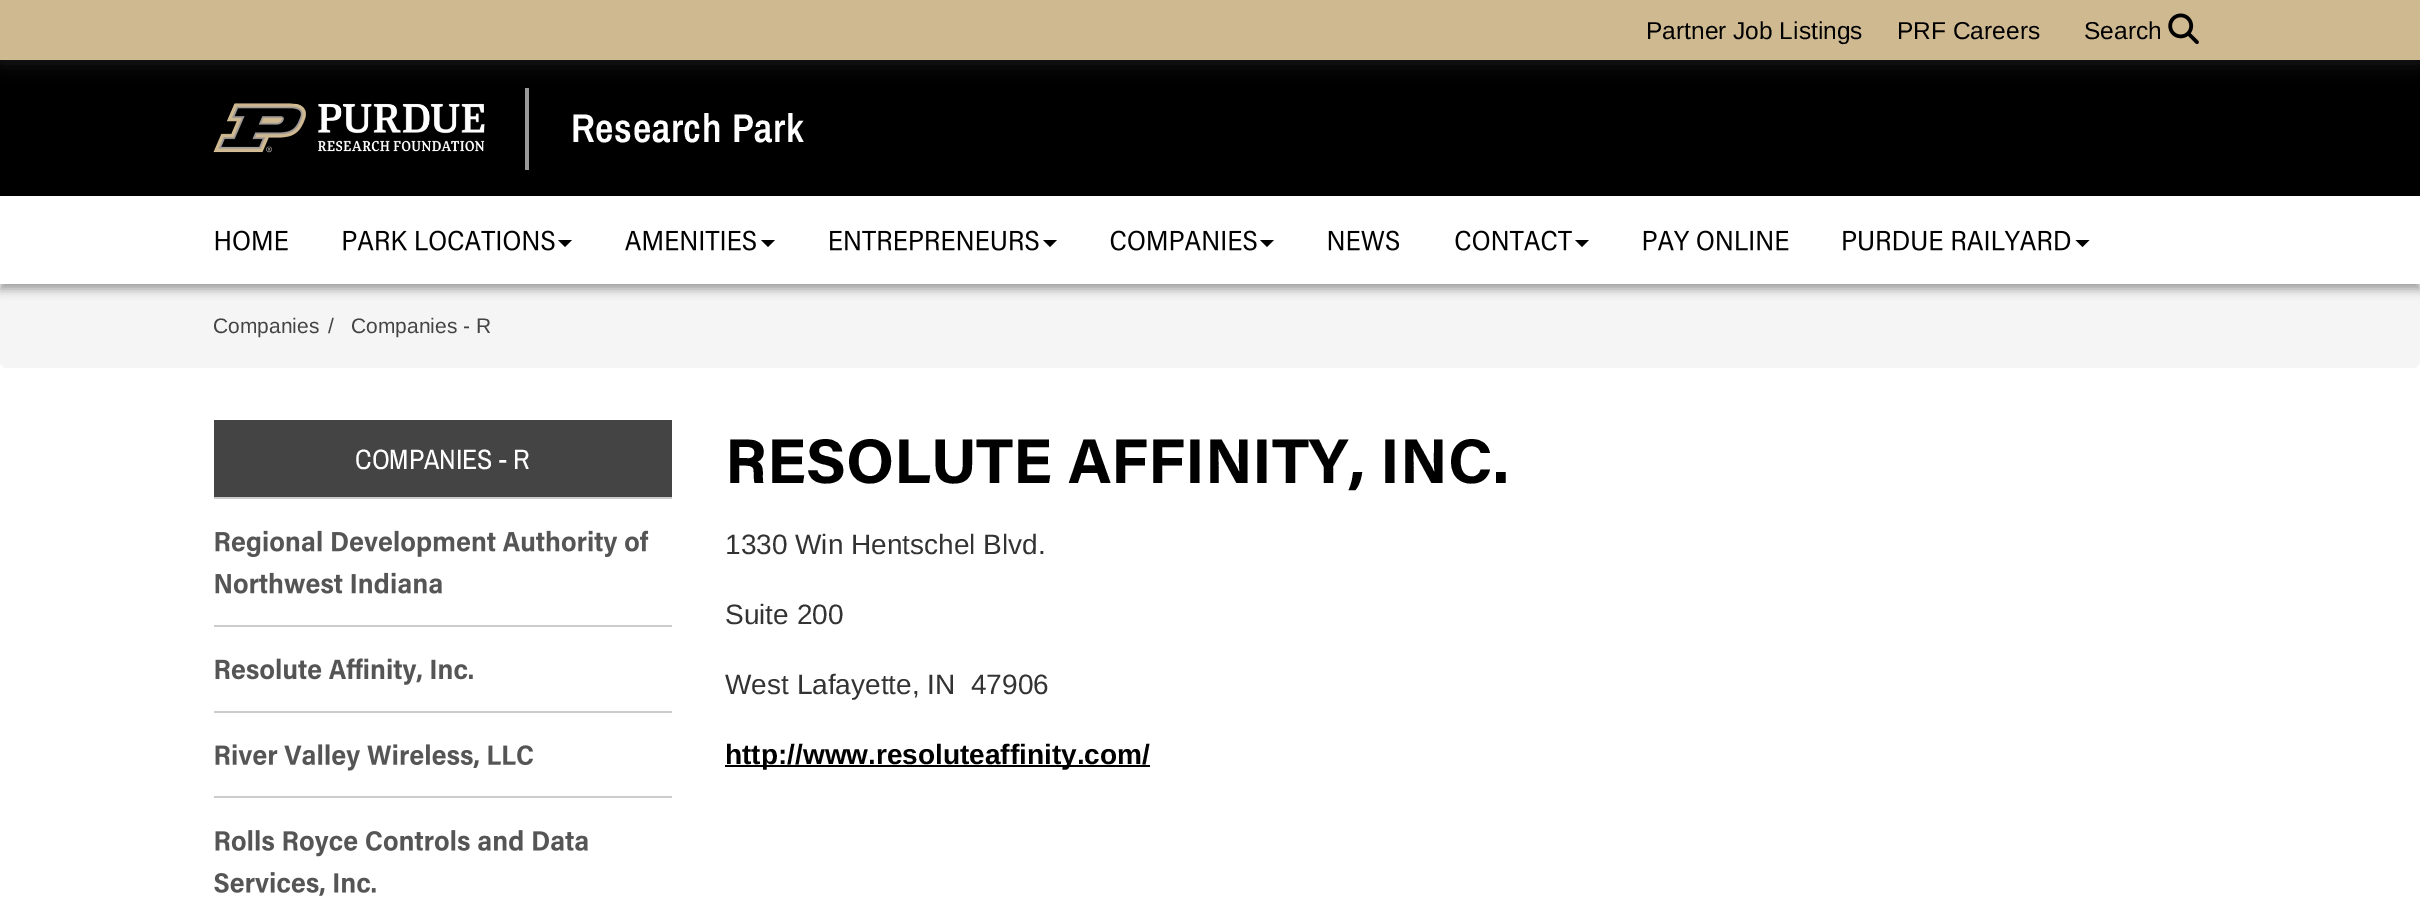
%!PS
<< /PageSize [2420 902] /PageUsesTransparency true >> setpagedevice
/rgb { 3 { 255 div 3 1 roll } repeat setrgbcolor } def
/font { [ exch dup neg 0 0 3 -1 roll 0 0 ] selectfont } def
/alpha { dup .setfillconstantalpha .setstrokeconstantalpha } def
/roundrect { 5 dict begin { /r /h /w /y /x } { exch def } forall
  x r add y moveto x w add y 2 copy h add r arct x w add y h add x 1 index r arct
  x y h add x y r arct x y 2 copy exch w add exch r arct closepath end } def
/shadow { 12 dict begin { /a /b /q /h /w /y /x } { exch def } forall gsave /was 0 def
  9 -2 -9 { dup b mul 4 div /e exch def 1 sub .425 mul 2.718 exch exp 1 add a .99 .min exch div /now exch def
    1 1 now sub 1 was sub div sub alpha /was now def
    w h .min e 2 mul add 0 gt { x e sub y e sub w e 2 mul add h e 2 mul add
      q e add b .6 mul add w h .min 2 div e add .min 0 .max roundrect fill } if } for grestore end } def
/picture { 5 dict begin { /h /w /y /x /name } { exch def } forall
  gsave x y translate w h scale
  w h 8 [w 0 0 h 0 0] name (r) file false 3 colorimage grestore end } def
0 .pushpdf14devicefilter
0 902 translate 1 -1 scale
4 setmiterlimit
255 255 255 rgb
0 0 2420 902 rectfill
0 0 0 rgb
0 60 2420 136 rectfill
30 30 30 rgb
0 4 2420 59 0 9 1 shadow
207 185 145 rgb
0 0 2420 60 rectfill
(img/1.rgb) 2168 13 31 31 picture
(img/2.rgb) 213 103 272 50 picture
153 153 153 rgb
525 88 4 82 rectfill
245 245 245 rgb
0 284 2420 84 7 roundrect fill
0 0 0 rgb
0 201 2420 88 0 5 0.23 shadow
0 201 2420 88 0 5 0.16 shadow
255 255 255 rgb
0 196 2420 88 rectfill
(img/3.rgb) 215 230 73 21 picture
(img/4.rgb) 343 230 212 21 picture
0 0 0 rgb
558 240 moveto 572 240 lineto 565 247 lineto closepath fill
(img/5.rgb) 625 230 131 21 picture
761 240 moveto 775 240 lineto 768 247 lineto closepath fill
(img/6.rgb) 830 230 209 21 picture
1043 240 moveto 1057 240 lineto 1050 247 lineto closepath fill
(img/7.rgb) 1110 230 147 21 picture
1260 240 moveto 1274 240 lineto 1267 247 lineto closepath fill
(img/8.rgb) 1328 230 72 21 picture
(img/9.rgb) 1455 230 117 21 picture
1575 240 moveto 1589 240 lineto 1582 247 lineto closepath fill
(img/10.rgb) 1643 230 146 21 picture
(img/11.rgb) 1843 230 228 21 picture
2075.5 240 moveto 2089.5 240 lineto 2082.5 247 lineto closepath fill
[
  [214 420 458 77 68 68 68]
  [214 497 458 2 204 204 204]
  [214 625 458 2 204 204 204]
] { aload pop rgb rectfill } forall
(img/12.rgb) 215 530 434 28 picture
(img/13.rgb) 215 572 227 22 picture
214 711 458 2 rectfill
(img/14.rgb) 215 658 258 27 picture
214 796 458 2 rectfill
(img/15.rgb) 215 744 318 27 picture
(img/16.rgb) 215 830 373 27 picture
(img/17.rgb) 214 872 162 24 picture
0 0 0 rgb
725 765 425 2 rectfill
/LiberationSans-Regular 24.5 font
[
  [(Partner Job Listings) 1646 39]
  [(PRF Careers) 1897 39]
  [(Search) 2084 39]
] { aload pop moveto show } forall
/ArchivoNarrow-SemiBold 40.25 font
255 255 255 rgb
571 142 moveto 0.6 0 (Research Park) ashow
/LiberationSans-Regular 21 font
68 68 68 rgb
[
  [(Companies) 213 333]
  [(/) 328 333]
  [(Companies - R) 351 333]
] { aload pop moveto show } forall
/ArchivoNarrow-Regular 28 font
255 255 255 rgb
355 469 moveto (COMPANIES - R) show
/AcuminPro-Bold 63 font
0 0 0 rgb
725 483 moveto (RESOLUTE AFFINITY, INC.) show
/LiberationSans-Regular 28 font
51 51 51 rgb
[
  [(1330 Win Hentschel Blvd.) 725 554]
  [(Suite 200) 725 624]
  [(West Lafayette, IN  47906) 725 694]
] { aload pop moveto show } forall
/LiberationSans-Bold 28 font
0 0 0 rgb
725 764 moveto (http://www.resoluteaffinity.com/) show
.poppdf14devicefilter showpage
